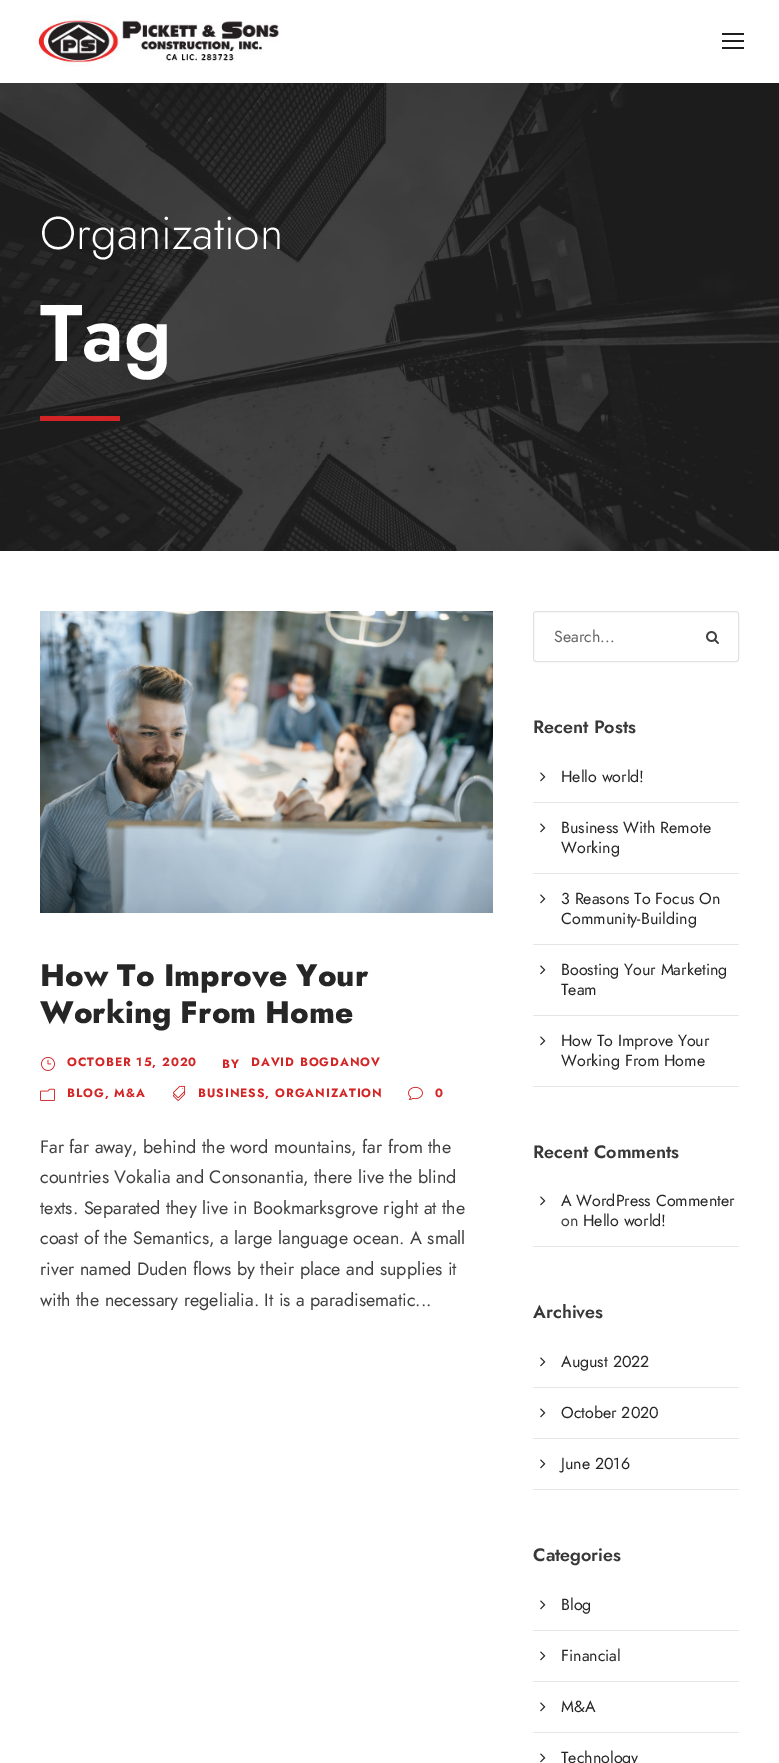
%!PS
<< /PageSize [779 1763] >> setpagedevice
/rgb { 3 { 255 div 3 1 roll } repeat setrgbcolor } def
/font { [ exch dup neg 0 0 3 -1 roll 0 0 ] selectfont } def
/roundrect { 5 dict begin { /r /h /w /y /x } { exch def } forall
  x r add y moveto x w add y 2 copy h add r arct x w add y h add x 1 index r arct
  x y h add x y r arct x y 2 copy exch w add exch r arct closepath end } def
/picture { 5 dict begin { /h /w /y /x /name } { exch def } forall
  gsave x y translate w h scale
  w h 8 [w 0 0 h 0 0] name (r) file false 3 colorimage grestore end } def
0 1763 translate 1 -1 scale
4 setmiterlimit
255 255 255 rgb
0 0 779 1763 rectfill
(img/1.rgb) 35 15 245 52 picture
[
  [722 33 22 2 31 31 31]
  [722 40 22 2 31 31 31]
  [722 47 22 2 31 31 31]
] { aload pop rgb rectfill } forall
(img/2.rgb) 0 83 779 468 picture
211 37 37 rgb
40 416 80 5 rectfill
(img/3.rgb) 40 611 453 302 picture
(img/4.rgb) 41 1056 14 15 picture
(img/5.rgb) 40 1088 15 13 picture
(img/6.rgb) 172 1085 14 16 picture
(img/7.rgb) 408 1086 15 14 picture
226 226 226 rgb
533.5 611.5 205 50 2.5 roundrect stroke
(img/8.rgb) 706 631 13 13 picture
230 230 230 rgb
533 802 206 1 rectfill
(img/9.rgb) 540 772 6 10 picture
533 873 206 1 rectfill
(img/9.rgb) 540 823 6 10 picture
533 944 206 1 rectfill
(img/9.rgb) 540 894 6 10 picture
533 1015 206 1 rectfill
(img/9.rgb) 540 965 6 10 picture
533 1086 206 1 rectfill
(img/9.rgb) 540 1036 6 10 picture
533 1246 206 1 rectfill
(img/9.rgb) 540 1196 6 10 picture
533 1387 206 1 rectfill
(img/9.rgb) 540 1357 6 10 picture
533 1438 206 1 rectfill
(img/9.rgb) 540 1408 6 10 picture
533 1489 206 1 rectfill
(img/9.rgb) 540 1459 6 10 picture
533 1630 206 1 rectfill
(img/9.rgb) 540 1600 6 10 picture
533 1681 206 1 rectfill
(img/9.rgb) 540 1651 6 10 picture
533 1732 206 1 rectfill
(img/9.rgb) 540 1702 6 10 picture
(img/9.rgb) 540 1753 6 10 picture
/Jost-Light 46 font
255 255 255 rgb
40 249 moveto (Organization) show
/Jost-SemiBold 80 font
40 361 moveto (Tag) show
/Jost-ExtraBold 31 font
38 38 38 rgb
40 986 moveto (How To Improve Your) show
40 1023 moveto (Working From Home) show
/Jost-Bold 12 font
211 37 37 rgb
67 1066 moveto 1 0 (OCTOBER 15, 2020) ashow
222 1068 moveto 1 0 (BY) ashow
251 1066 moveto 1 0 (DAVID BOGDANOV) ashow
67 1097 moveto 1 0 (BLOG, M&A) ashow
198 1097 moveto 1 0 (BUSINESS, ORGANIZATION) ashow
435 1097 moveto 1 0 (0) ashow
/Jost-Regular 18 font
63 64 63 rgb
[
  [(Far far away, behind the word mountains, far from the) 40 1153]
  [(countries Vokalia and Consonantia, there live the blind) 40 1183]
  [(texts. Separated they live in Bookmarksgrove right at the) 40 1214]
  [(coast of the Semantics, a large language ocean. A small) 40 1244]
  [(river named Duden flows by their place and supplies it) 40 1275]
  [(with the necessary regelialia. It is a paradisematic...) 40 1306]
] { aload pop moveto show } forall
/Jost-Regular 16 font
102 102 102 rgb
554 642 moveto (Search...) show
/Jost-SemiBold 18 font
56 56 56 rgb
533 733 moveto (Recent Posts) show
/Jost-Regular 16 font
38 38 38 rgb
[
  [(Hello world!) 561 782]
  [(Business With Remote) 561 833]
  [(Working) 561 853]
  [(3 Reasons To Focus On) 561 904]
  [(Community-Building) 561 924]
  [(Boosting Your Marketing) 561 975]
  [(Team) 561 995]
  [(How To Improve Your) 561 1046]
  [(Working From Home) 561 1066]
] { aload pop moveto show } forall
/Jost-SemiBold 18 font
56 56 56 rgb
533 1158 moveto (Recent Comments) show
/Jost-Regular 16 font
38 38 38 rgb
561 1206 moveto (A WordPress Commenter) show
63 64 63 rgb
561 1226 moveto (on) show
38 38 38 rgb
583 1226 moveto (Hello world!) show
/Jost-SemiBold 18 font
56 56 56 rgb
533 1318 moveto (Archives) show
/Jost-Regular 16 font
38 38 38 rgb
[
  [(August 2022) 561 1367]
  [(October 2020) 561 1418]
  [(June 2016) 561 1469]
] { aload pop moveto show } forall
/Jost-SemiBold 18 font
56 56 56 rgb
533 1561 moveto (Categories) show
/Jost-Regular 16 font
38 38 38 rgb
[
  [(Blog) 561 1610]
  [(Financial) 561 1661]
  [(M&A) 561 1712]
  [(Technology) 561 1763]
] { aload pop moveto show } forall
showpage
